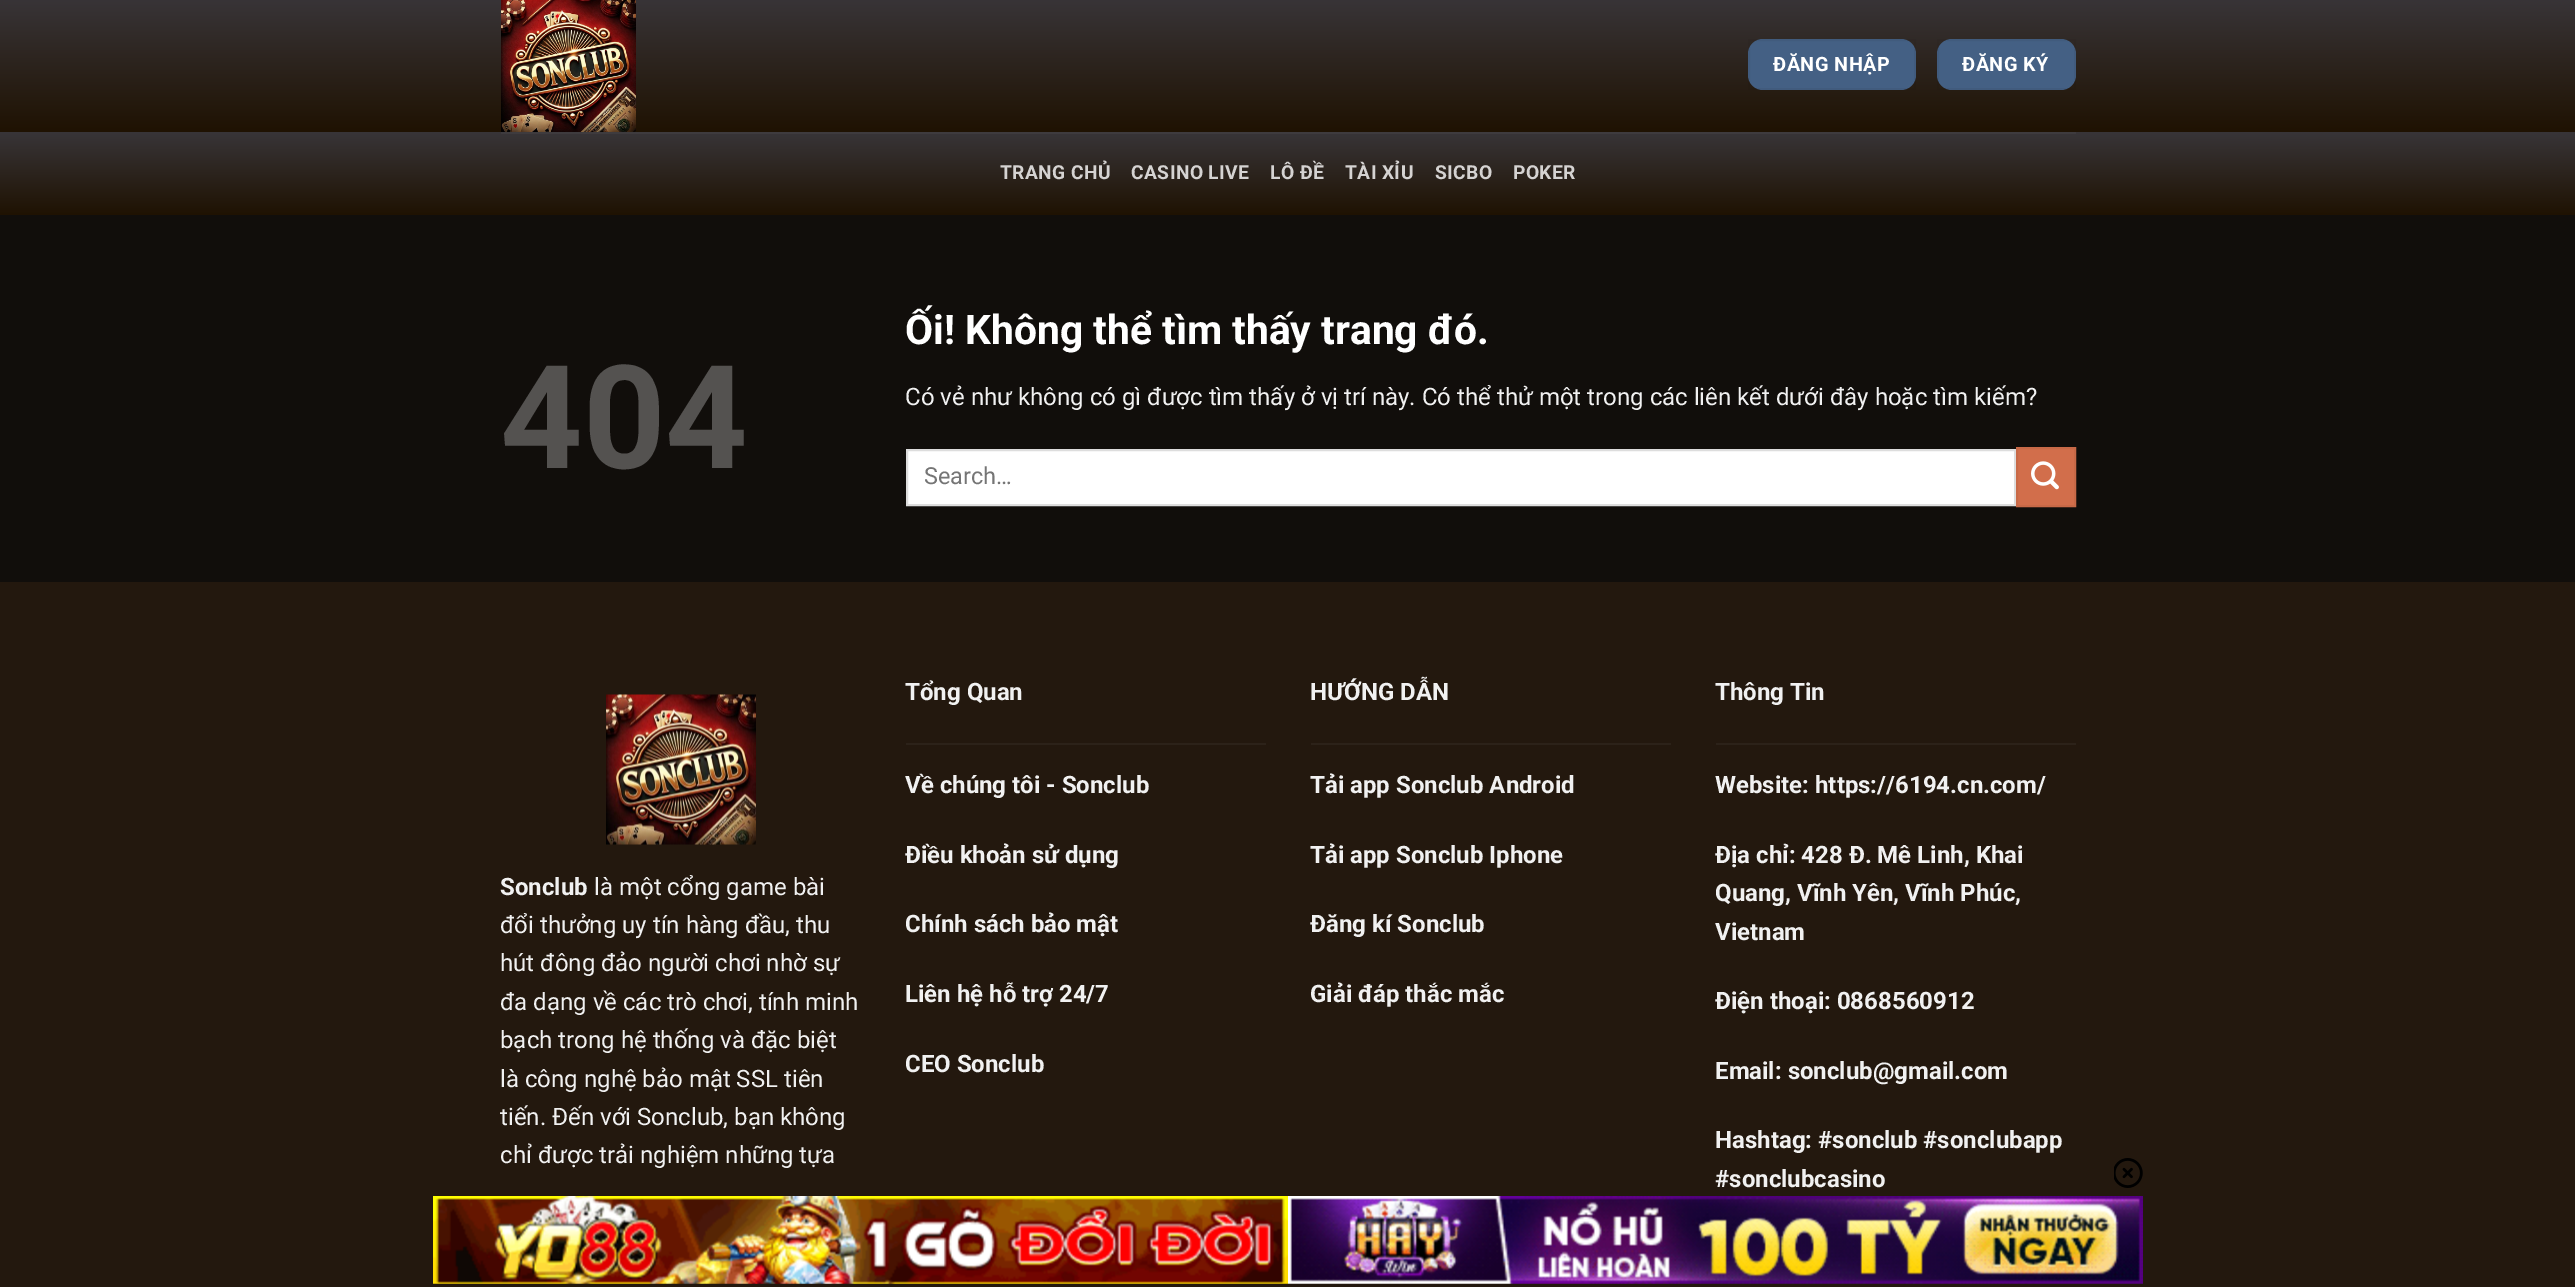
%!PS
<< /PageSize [2575 1287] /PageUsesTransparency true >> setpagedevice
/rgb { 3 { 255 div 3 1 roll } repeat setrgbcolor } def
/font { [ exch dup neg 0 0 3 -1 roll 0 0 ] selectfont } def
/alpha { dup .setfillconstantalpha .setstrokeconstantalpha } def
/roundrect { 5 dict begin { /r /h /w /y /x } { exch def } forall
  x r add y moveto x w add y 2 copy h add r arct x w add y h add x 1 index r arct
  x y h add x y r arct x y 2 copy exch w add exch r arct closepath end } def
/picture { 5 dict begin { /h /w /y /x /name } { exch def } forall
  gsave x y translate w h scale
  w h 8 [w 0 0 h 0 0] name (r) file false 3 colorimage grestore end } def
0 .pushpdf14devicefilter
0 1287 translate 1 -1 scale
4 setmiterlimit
17 14 11 rgb
0 0 2575 1287 rectfill
gsave 0 0 moveto 2575 0 lineto 2575 132 lineto 0 132 lineto closepath clip newpath
<< /ShadingType 2 /ColorSpace /DeviceRGB /Coords [1288 -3 1288 132] /Extend [true true] /Function << /FunctionType 2 /Domain [0 1] /C0 [0.22 0.208 0.22] /C1 [0.122 0.071 0.008] /N 1 >> >> shfill grestore
(img/1.rgb) 501 0 135 132 picture
68 96 132 rgb
1748 39 168 51 15 roundrect fill
0.05 alpha
0 0 0 rgb
2 setlinewidth
1749 40 166 49 rectstroke
1 alpha
68 96 132 rgb
1937 39 139 51 15 roundrect fill
0.05 alpha
0 0 0 rgb
1938 40 137 49 rectstroke
1 alpha
gsave 0 132 moveto 2575 132 lineto 2575 215 lineto 0 215 lineto closepath clip newpath
<< /ShadingType 2 /ColorSpace /DeviceRGB /Coords [1288 132 1288 215] /Extend [true true] /Function << /FunctionType 2 /Domain [0 1] /C0 [0.22 0.208 0.22] /C1 [0.122 0.071 0.008] /N 1 >> >> shfill grestore
62 59 62 rgb
501 132 1575 2 rectfill
255 255 255 rgb
907 450 moveto 2015 450 lineto 2015 505 lineto 907 505 lineto closepath gsave fill grestore
221 221 221 rgb
stroke
210 110 75 rgb
2017 448 moveto 2075 448 lineto 2075 506 lineto 2017 506 lineto closepath gsave fill grestore
200 105 71 rgb
stroke
(img/2.rgb) 2031 461 28 29 picture
35 24 14 rgb
0 582 2575 705 rectfill
(img/3.rgb) 606 694 150 151 picture
[
  [906 743 360 2 44 34 25]
  [1311 743 360 2 44 34 25]
  [1716 743 360 2 44 34 25]
] { aload pop rgb rectfill } forall
(img/4.rgb) 2114 1158 29 30 picture
(img/5.rgb) 433 1196 855 88 picture
(img/6.rgb) 1288 1196 855 88 picture
/Roboto-Bold 19.75 font
255 255 255 rgb
1773 71 moveto 0.5 0 (ĐĂNG NHẬP) ashow
1962 71 moveto 0.5 0 (ĐĂNG KÝ) ashow
/Roboto-Bold 19.25 font
213 211 210 rgb
1000 179 moveto 0.4 0 (TRANG CHỦ) ashow
1131 179 moveto 0.4 0 (CASINO LIVE) ashow
1270 179 moveto 0.4 0 (LÔ ĐỀ) ashow
1345 179 moveto 0.4 0 (TÀI XỈU) ashow
1435 179 moveto 0.4 0 (SICBO) ashow
1513 179 moveto 0.4 0 (POKER) ashow
/Roboto-Bold 144 font
84 82 80 rgb
500 468 moveto (404) show
/Roboto-Bold 40.75 font
255 255 255 rgb
905 344 moveto (Ối! Không thể tìm thấy trang đó.) show
/Roboto-Regular 24 font
241 241 241 rgb
905 405 moveto (Có vẻ như không có gì được tìm thấy ở vị trí này. Có thể thử một trong các liên kết dưới đây hoặc tìm kiếm?) show
/Roboto-Regular 23.5 font
117 117 117 rgb
924 484 moveto (Search…) show
/Roboto-Bold 24 font
241 241 241 rgb
500 895 moveto (Sonclub) show
/Roboto-Regular 24 font
[
  [(là một cổng game bài) 594 895]
  [(đổi thưởng uy tín hàng đầu, thu) 500 933]
  [(hút đông đảo người chơi nhờ sự) 500 971]
  [(đa dạng về các trò chơi, tính minh) 500 1010]
  [(bạch trong hệ thống và đặc biệt) 500 1048]
  [(là công nghệ bảo mật SSL tiên) 500 1087]
  [(tiến. Đến với Sonclub, bạn không) 500 1125]
  [(chỉ được trải nghiệm những tựa) 500 1163]
] { aload pop moveto show } forall
/Roboto-Bold 24 font
[
  [(Tổng Quan) 905 700]
  [(Về chúng tôi - Sonclub) 905 793]
  [(Điều khoản sử dụng) 905 863]
  [(Chính sách bảo mật) 905 932]
  [(Liên hệ hỗ trợ 24/7) 905 1002]
  [(CEO Sonclub) 905 1072]
  [(HƯỚNG DẪN) 1310 700]
  [(Tải app Sonclub Android) 1310 793]
  [(Tải app Sonclub Iphone) 1310 863]
  [(Đăng kí Sonclub) 1310 932]
  [(Giải đáp thắc mắc) 1310 1002]
  [(Thông Tin) 1715 700]
  [(Website: https://6194.cn.com/) 1715 793]
  [(Địa chỉ: 428 Đ. Mê Linh, Khai) 1715 863]
  [(Quang, Vĩnh Yên, Vĩnh Phúc,) 1715 901]
  [(Vietnam) 1715 940]
  [(Điện thoại: 0868560912) 1715 1009]
  [(Email: sonclub@gmail.com) 1715 1079]
  [(Hashtag: #sonclub #sonclubapp) 1715 1148]
  [(#sonclubcasino) 1715 1187]
] { aload pop moveto show } forall
.poppdf14devicefilter showpage
